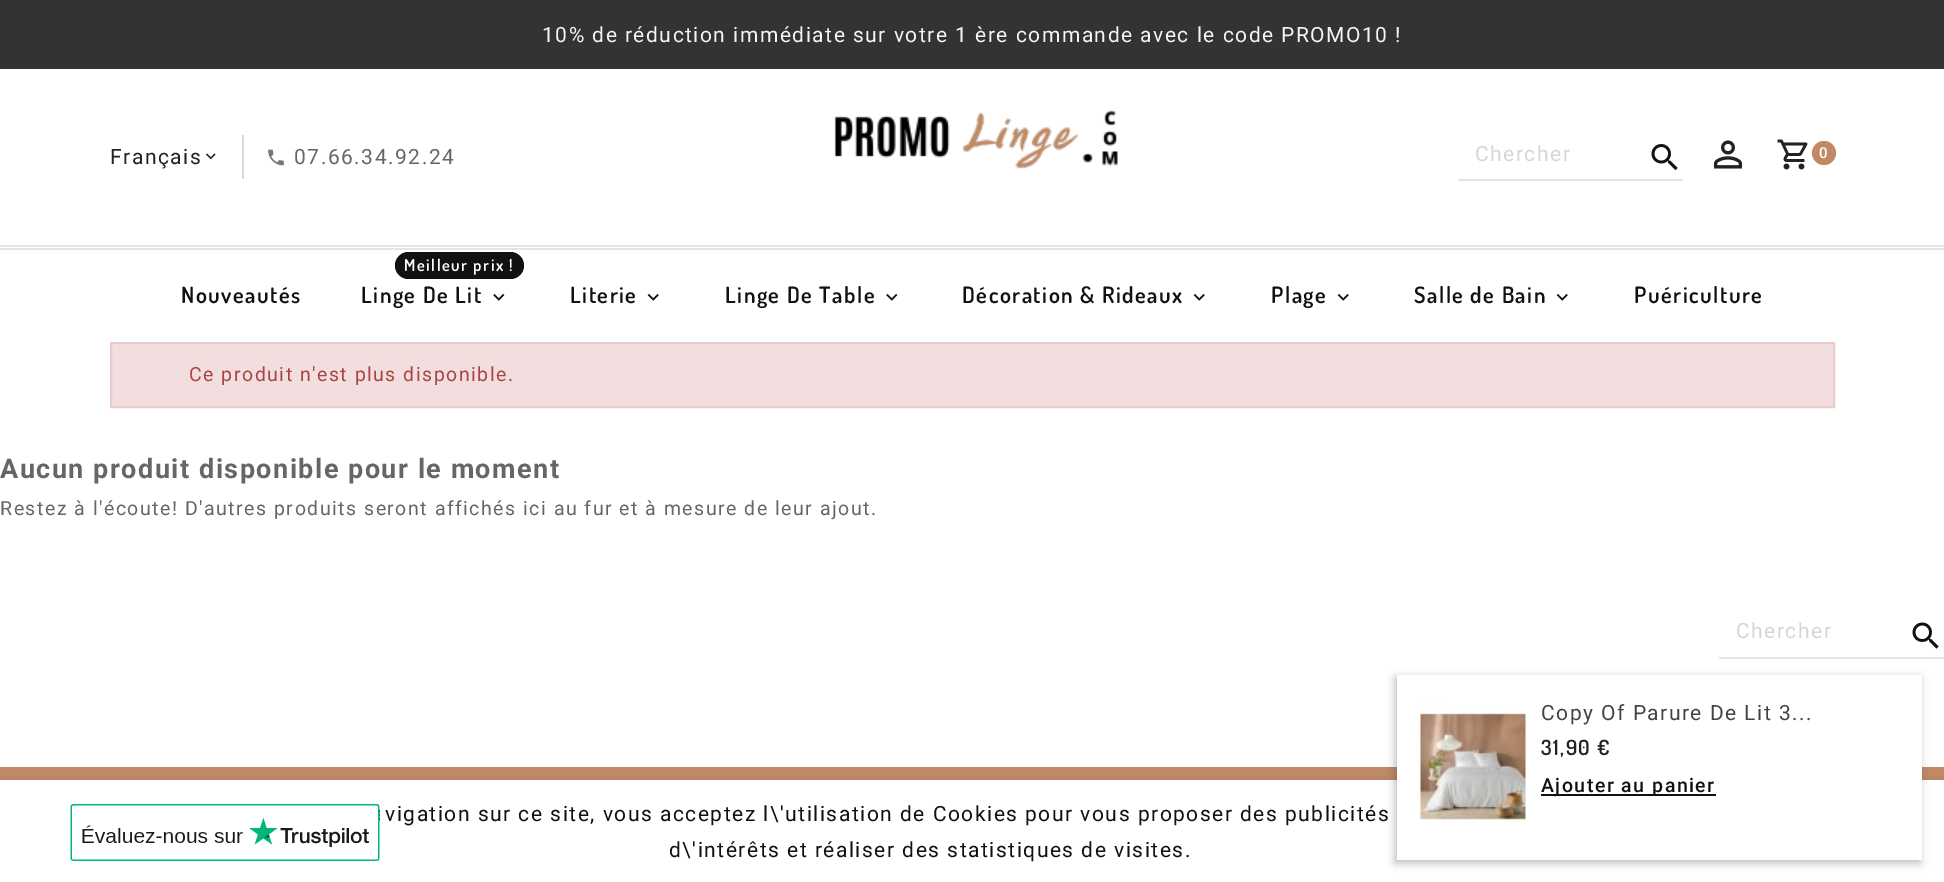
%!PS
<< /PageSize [1944 882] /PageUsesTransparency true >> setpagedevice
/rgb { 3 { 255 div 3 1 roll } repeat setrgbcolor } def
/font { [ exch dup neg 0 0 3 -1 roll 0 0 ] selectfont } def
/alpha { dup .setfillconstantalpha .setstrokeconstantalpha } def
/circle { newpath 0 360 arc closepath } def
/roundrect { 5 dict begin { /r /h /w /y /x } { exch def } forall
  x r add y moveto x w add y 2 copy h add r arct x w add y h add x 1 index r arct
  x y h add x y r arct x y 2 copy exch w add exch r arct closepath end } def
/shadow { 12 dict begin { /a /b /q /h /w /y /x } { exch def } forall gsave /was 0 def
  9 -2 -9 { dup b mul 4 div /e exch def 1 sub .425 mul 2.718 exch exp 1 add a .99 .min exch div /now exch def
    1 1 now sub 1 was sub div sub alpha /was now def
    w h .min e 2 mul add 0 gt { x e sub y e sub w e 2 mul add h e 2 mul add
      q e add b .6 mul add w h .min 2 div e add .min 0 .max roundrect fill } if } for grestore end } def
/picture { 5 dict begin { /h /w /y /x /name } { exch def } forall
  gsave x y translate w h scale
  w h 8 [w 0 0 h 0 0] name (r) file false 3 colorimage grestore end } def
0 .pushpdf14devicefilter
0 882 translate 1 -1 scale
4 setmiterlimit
255 255 255 rgb
0 0 1944 882 rectfill
[
  [0 0 1944 69 51 51 51]
  [0 245 1944 2 229 229 229]
  [0 248 1944 2 229 229 229]
] { aload pop rgb rectfill } forall
(img/1.rgb) 206 153 10 7 picture
215 215 215 rgb
242 135 2 44 rectfill
(img/2.rgb) 268 149 16 17 picture
(img/3.rgb) 834 110 284 59 picture
229 229 229 rgb
1458 179 225 2 rectfill
(img/4.rgb) 1651 144 27 27 picture
(img/5.rgb) 1713 140 30 29 picture
(img/6.rgb) 1777 139 31 31 picture
192 138 102 rgb
1824 153 12 circle fill
17 17 17 rgb
395 252 129 27 13.5 roundrect fill
(img/7.rgb) 493 293 12 8 picture
(img/8.rgb) 647 293 12 8 picture
(img/7.rgb) 886 293 12 8 picture
(img/8.rgb) 1193 293 12 8 picture
(img/8.rgb) 1337 293 12 8 picture
(img/8.rgb) 1556 293 12 8 picture
242 222 222 rgb
111 343 moveto 1834 343 lineto 1834 407 lineto 111 407 lineto closepath gsave fill grestore
235 204 204 rgb
2 setlinewidth
stroke
229 229 229 rgb
1719 657 225 2 rectfill
(img/9.rgb) 1912 622 27 27 picture
192 138 102 rgb
0 767 1944 13 rectfill
0 0 0 rgb
0 782 1944 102 0 4 0.15 shadow
255 255 255 rgb
0 780 1944 102 rectfill
30 32 40 rgb
1395 678 525 185 0 4.5 0.3 shadow
255 255 255 rgb
1397 675 525 185 rectfill
(img/10.rgb) 1420 703 106 118 picture
17 17 17 rgb
1541 794 175 2 rectfill
(img/11.rgb) 70 804 310 57 picture
/Roboto-Regular 21 font
245 245 245 rgb
542 42 moveto 1.5 0 (10% de réduction immédiate sur votre 1 ère commande avec le code PROMO10 !) ashow
34 34 34 rgb
110 164 moveto 1.5 0 (Français) ashow
102 102 102 rgb
294 164 moveto 1.5 0 (07.66.34.92.24) ashow
214 213 211 rgb
1475 161 moveto 1.5 0 (Chercher) ashow
/Roboto-Medium 15 font
255 255 255 rgb
1819 158 moveto 1.5 0 (0) ashow
/Dosis-SemiBold 22.5 font
17 17 17 rgb
181 303 moveto 1.5 0 (Nouveautés) ashow
/Dosis-SemiBold 16.5 font
255 255 255 rgb
404 271 moveto 1.5 0 (Meilleur prix !) ashow
/Dosis-SemiBold 22.5 font
17 17 17 rgb
361 303 moveto 1.5 0 (Linge De Lit) ashow
570 303 moveto 1.5 0 (Literie) ashow
725 303 moveto 1.5 0 (Linge De Table) ashow
962 303 moveto 1.5 0 (Décoration & Rideaux) ashow
1271 303 moveto 1.5 0 (Plage) ashow
1414 303 moveto 1.5 0 (Salle de Bain) ashow
1634 303 moveto 1.5 0 (Puériculture) ashow
/Roboto-Regular 19.5 font
169 68 66 rgb
189 381 moveto 1.5 0 (Ce produit n'est plus disponible.) ashow
/Roboto-Bold 27 font
102 102 102 rgb
0 478 moveto 1.5 0 (Aucun produit disponible pour le moment) ashow
/Roboto-Regular 19.5 font
0 515 moveto 1.5 0 (Restez à l'écoute! D'autres produits seront affichés ici au fur et à mesure de leur ajout.) ashow
/Roboto-Regular 21 font
214 213 211 rgb
1736 638 moveto 1.5 0 (Chercher) ashow
68 68 68 rgb
1541 720 moveto 1.5 0 (Copy Of Parure De Lit 3...) ashow
/Dosis-SemiBold 21 font
34 34 34 rgb
1541 755 moveto 1.5 0 (31,90 €) ashow
/Roboto-Medium 19.5 font
17 17 17 rgb
1541 792 moveto 1.5 0 (Ajouter au panier) ashow
/Roboto-Regular 21 font
385 821 moveto 1.5 0 (vigation sur ce site, vous acceptez l\\'utilisation de Cookies pour vous proposer des publicités) ashow
669 857 moveto 1.5 0 (d\\'intérêts et réaliser des statistiques de visites.) ashow
.poppdf14devicefilter showpage
